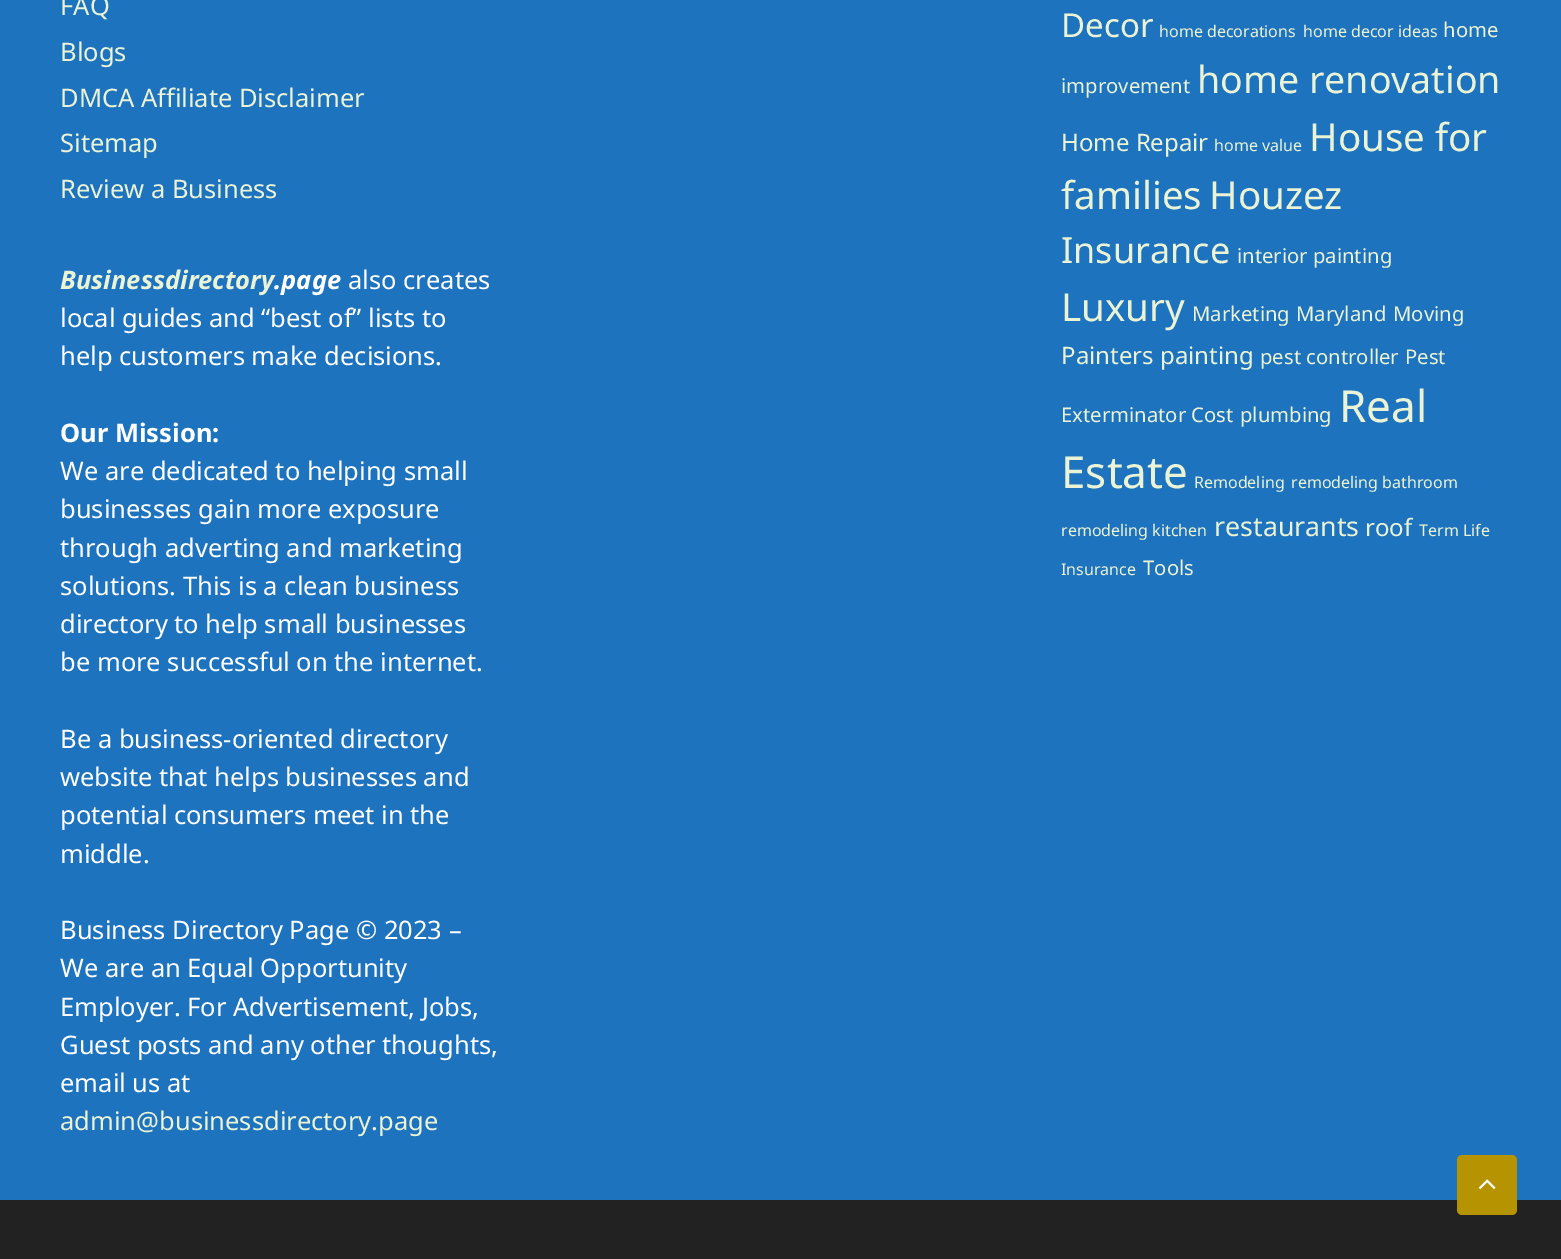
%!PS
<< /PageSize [1561 1259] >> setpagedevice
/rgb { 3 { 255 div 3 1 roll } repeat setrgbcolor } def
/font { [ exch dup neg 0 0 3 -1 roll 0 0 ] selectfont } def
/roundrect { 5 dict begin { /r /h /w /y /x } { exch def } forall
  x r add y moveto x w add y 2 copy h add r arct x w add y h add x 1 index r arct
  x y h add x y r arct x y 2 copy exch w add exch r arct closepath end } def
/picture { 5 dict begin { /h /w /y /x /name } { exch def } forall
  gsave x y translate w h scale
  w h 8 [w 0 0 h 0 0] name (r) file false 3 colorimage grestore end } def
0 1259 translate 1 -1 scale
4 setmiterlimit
30 115 190 rgb
0 0 1561 1259 rectfill
34 34 34 rgb
0 1200 1561 59 rectfill
182 147 1 rgb
1457 1155 60 60 5 roundrect fill
(img/1.rgb) 1478 1179 18 11 picture
/NotoSans-Regular 25.5 font
235 243 215 rgb
[
  [(FAQ) 60 15]
  [(Blogs) 60 61]
  [(DMCA Affiliate Disclaimer) 60 107]
  [(Sitemap) 60 152]
  [(Review a Business) 60 198]
] { aload pop moveto show } forall
/NotoSans-BoldItalic 25.5 font
60 289 moveto (Businessdirectory) show
255 255 255 rgb
274 289 moveto (.page) show
/NotoSans-Regular 25.5 font
[
  [(also creates) 348 289]
  [(local guides and “best of” lists to) 60 327]
  [(help customers make decisions.) 60 365]
] { aload pop moveto show } forall
/NotoSans-Bold 25.5 font
60 442 moveto (Our Mission:) show
/NotoSans-Regular 25.5 font
[
  [(We are dedicated to helping small) 60 480]
  [(businesses gain more exposure) 60 518]
  [(through adverting and marketing) 60 557]
  [(solutions. This is a clean business) 60 595]
  [(directory to help small businesses) 60 633]
  [(be more successful on the internet.) 60 671]
  [(Be a business-oriented directory) 60 748]
  [(website that helps businesses and) 60 786]
  [(potential consumers meet in the) 60 824]
  [(middle.) 60 863]
  [(Business Directory Page © 2023 –) 60 939]
  [(We are an Equal Opportunity) 60 977]
  [(Employer. For Advertisement, Jobs,) 60 1016]
  [(Guest posts and any other thoughts,) 60 1054]
  [(email us at) 60 1092]
] { aload pop moveto show } forall
235 243 215 rgb
60 1130 moveto (admin@businessdirectory.page) show
/NotoSans-Regular 33 font
1061 37 moveto (Decor) show
/NotoSans-Regular 16 font
1159 37 moveto (home decorations) show
1303 37 moveto (home decor ideas) show
/NotoSans-Regular 20.25 font
1443 37 moveto (home) show
1061 93 moveto (improvement) show
/NotoSans-Regular 37.5 font
1197 93 moveto (home renovation) show
/NotoSans-Regular 24 font
1061 151 moveto (Home Repair) show
/NotoSans-Regular 16 font
1214 151 moveto (home value) show
/NotoSans-Regular 38.5 font
[
  [(House for) 1309 151]
  [(families) 1061 209]
  [(Houzez) 1209 209]
] { aload pop moveto show } forall
/NotoSans-Regular 36 font
1061 263 moveto (Insurance) show
/NotoSans-Regular 20.25 font
1237 263 moveto (interior painting) show
/NotoSans-Regular 38.5 font
1061 321 moveto (Luxury) show
/NotoSans-Regular 20.25 font
[
  [(Marketing) 1192 321]
  [(Maryland) 1296 321]
  [(Moving) 1393 321]
] { aload pop moveto show } forall
/NotoSans-Regular 24 font
1061 364 moveto (Painters) show
1160 364 moveto (painting) show
/NotoSans-Regular 20.25 font
[
  [(pest controller) 1260 364]
  [(Pest) 1405 364]
  [(Exterminator Cost) 1061 422]
  [(plumbing) 1240 422]
] { aload pop moveto show } forall
/NotoSans-Regular 44 font
1339 422 moveto (Real) show
1061 488 moveto (Estate) show
/NotoSans-Regular 16 font
[
  [(Remodeling) 1194 488]
  [(remodeling bathroom) 1291 488]
  [(remodeling kitchen) 1061 536]
] { aload pop moveto show } forall
/NotoSans-Regular 26.75 font
1214 536 moveto (restaurants) show
/NotoSans-Regular 24 font
1365 536 moveto (roof) show
/NotoSans-Regular 16 font
1419 536 moveto (Term Life) show
1061 575 moveto (Insurance) show
/NotoSans-Regular 20.25 font
1143 575 moveto (Tools) show
showpage
